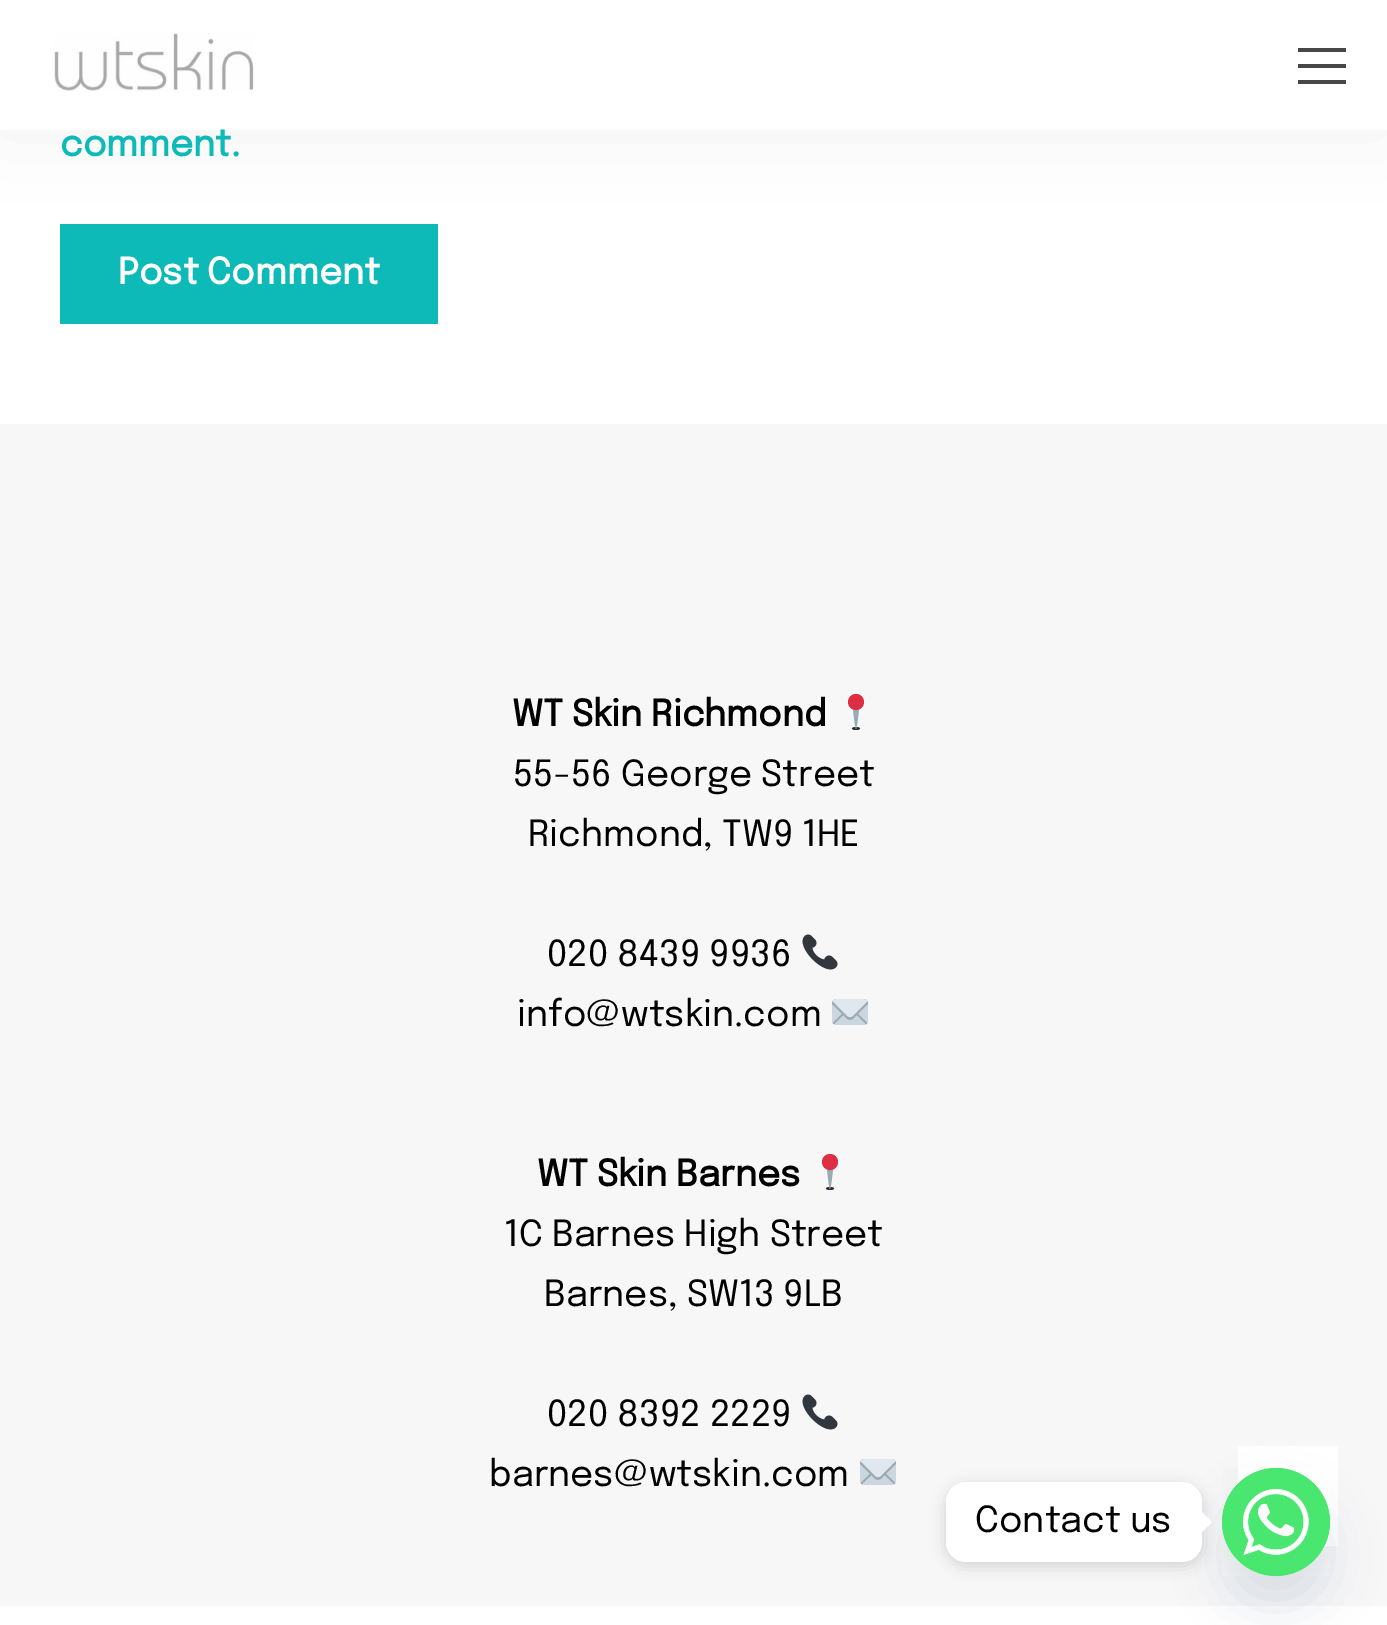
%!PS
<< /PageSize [1387 1625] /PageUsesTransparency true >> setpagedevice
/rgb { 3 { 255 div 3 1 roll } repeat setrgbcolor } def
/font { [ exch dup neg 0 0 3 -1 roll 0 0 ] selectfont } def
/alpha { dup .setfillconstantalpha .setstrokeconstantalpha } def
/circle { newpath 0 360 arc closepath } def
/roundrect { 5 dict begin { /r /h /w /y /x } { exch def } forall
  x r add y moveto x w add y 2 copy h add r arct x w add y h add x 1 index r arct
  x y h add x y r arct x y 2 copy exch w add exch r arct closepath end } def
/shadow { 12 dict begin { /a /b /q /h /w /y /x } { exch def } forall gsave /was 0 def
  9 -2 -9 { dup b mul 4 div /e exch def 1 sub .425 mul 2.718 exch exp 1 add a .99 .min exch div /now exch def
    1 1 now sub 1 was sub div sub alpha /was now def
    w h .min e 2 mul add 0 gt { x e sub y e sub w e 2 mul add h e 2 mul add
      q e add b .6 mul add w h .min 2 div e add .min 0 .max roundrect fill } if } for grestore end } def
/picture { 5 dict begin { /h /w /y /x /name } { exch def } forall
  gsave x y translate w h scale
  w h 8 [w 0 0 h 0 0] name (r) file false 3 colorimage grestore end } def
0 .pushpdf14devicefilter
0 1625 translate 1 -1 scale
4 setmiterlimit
255 255 255 rgb
0 0 1387 1625 rectfill
14 186 183 rgb
60 224 378 100 rectfill
15 15 15 rgb
0 4 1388 130 0 40 0.05 shadow
255 255 255 rgb
0 0 1387 130 rectfill
(img/1.rgb) 54 33 200 58 picture
[
  [1298 80 48 4 71 71 71]
  [1298 48 48 4 71 71 71]
  [1298 64 48 4 71 71 71]
  [0 424 1387 1182 247 247 247]
] { aload pop rgb rectfill } forall
41 47 51 rgb
856 727 moveto 858 727 860 727.5 860 728.5 curveto 860 729.5 858 730 856 730 curveto 854 730 852 729.5 852 728.5 curveto 852 727.5 854 727 856 727 curveto closepath fill
153 170 181 rgb
852.5 704.5 moveto 852.5 704.5 855 729 856 729 curveto 857 729 859.5 704.5 859.5 704.5 curveto closepath fill
221 46 68 rgb
856 702 8 circle fill
(img/2.rgb) 802 934 36 36 picture
(img/3.rgb) 832 999 36 26 picture
41 47 51 rgb
830 1187 moveto 832 1187 834 1187.5 834 1188.5 curveto 834 1189.5 832 1190 830 1190 curveto 828 1190 826 1189.5 826 1188.5 curveto 826 1187.5 828 1187 830 1187 curveto closepath fill
153 170 181 rgb
826.5 1164.5 moveto 826.5 1164.5 829 1189 830 1189 curveto 831 1189 833.5 1164.5 833.5 1164.5 curveto closepath fill
221 46 68 rgb
830 1162 8 circle fill
(img/2.rgb) 802 1394 36 36 picture
(img/3.rgb) 860 1459 36 26 picture
255 255 255 rgb
1238 1446 100 100 rectfill
73 104 126 rgb
1222 1500 108 108 54 24 0.16 shadow
(img/4.rgb) 1222 1468 108 108 picture
0 0 0 rgb
946 1486 256 80 20 7.5 0.15 shadow
255 255 255 rgb
946 1482 256 80 20 roundrect fill
1202 1532 moveto 1202 1512 lineto 1212 1522 lineto closepath fill
/Epilogue-Bold 36 font
14 186 183 rgb
60 156 moveto (comment.) show
255 255 255 rgb
118 284 moveto (Post Comment) show
0 0 0 rgb
512 726 moveto (WT Skin Richmond) show
/Epilogue-Regular 36 font
[
  [(55-56 George Street) 513 786]
  [(Richmond, TW9 1HE) 528 846]
  [(020 8439 9936) 547 966]
  [(info@wtskin.com) 517 1026]
] { aload pop moveto show } forall
/Epilogue-Bold 36 font
537 1186 moveto (WT Skin Barnes) show
/Epilogue-Regular 36 font
[
  [(1C Barnes High Street) 504 1246]
  [(Barnes, SW13 9LB) 544 1306]
  [(020 8392 2229) 547 1426]
  [(barnes@wtskin.com) 489 1486]
  [(Contact us) 975 1532]
] { aload pop moveto show } forall
.poppdf14devicefilter showpage
